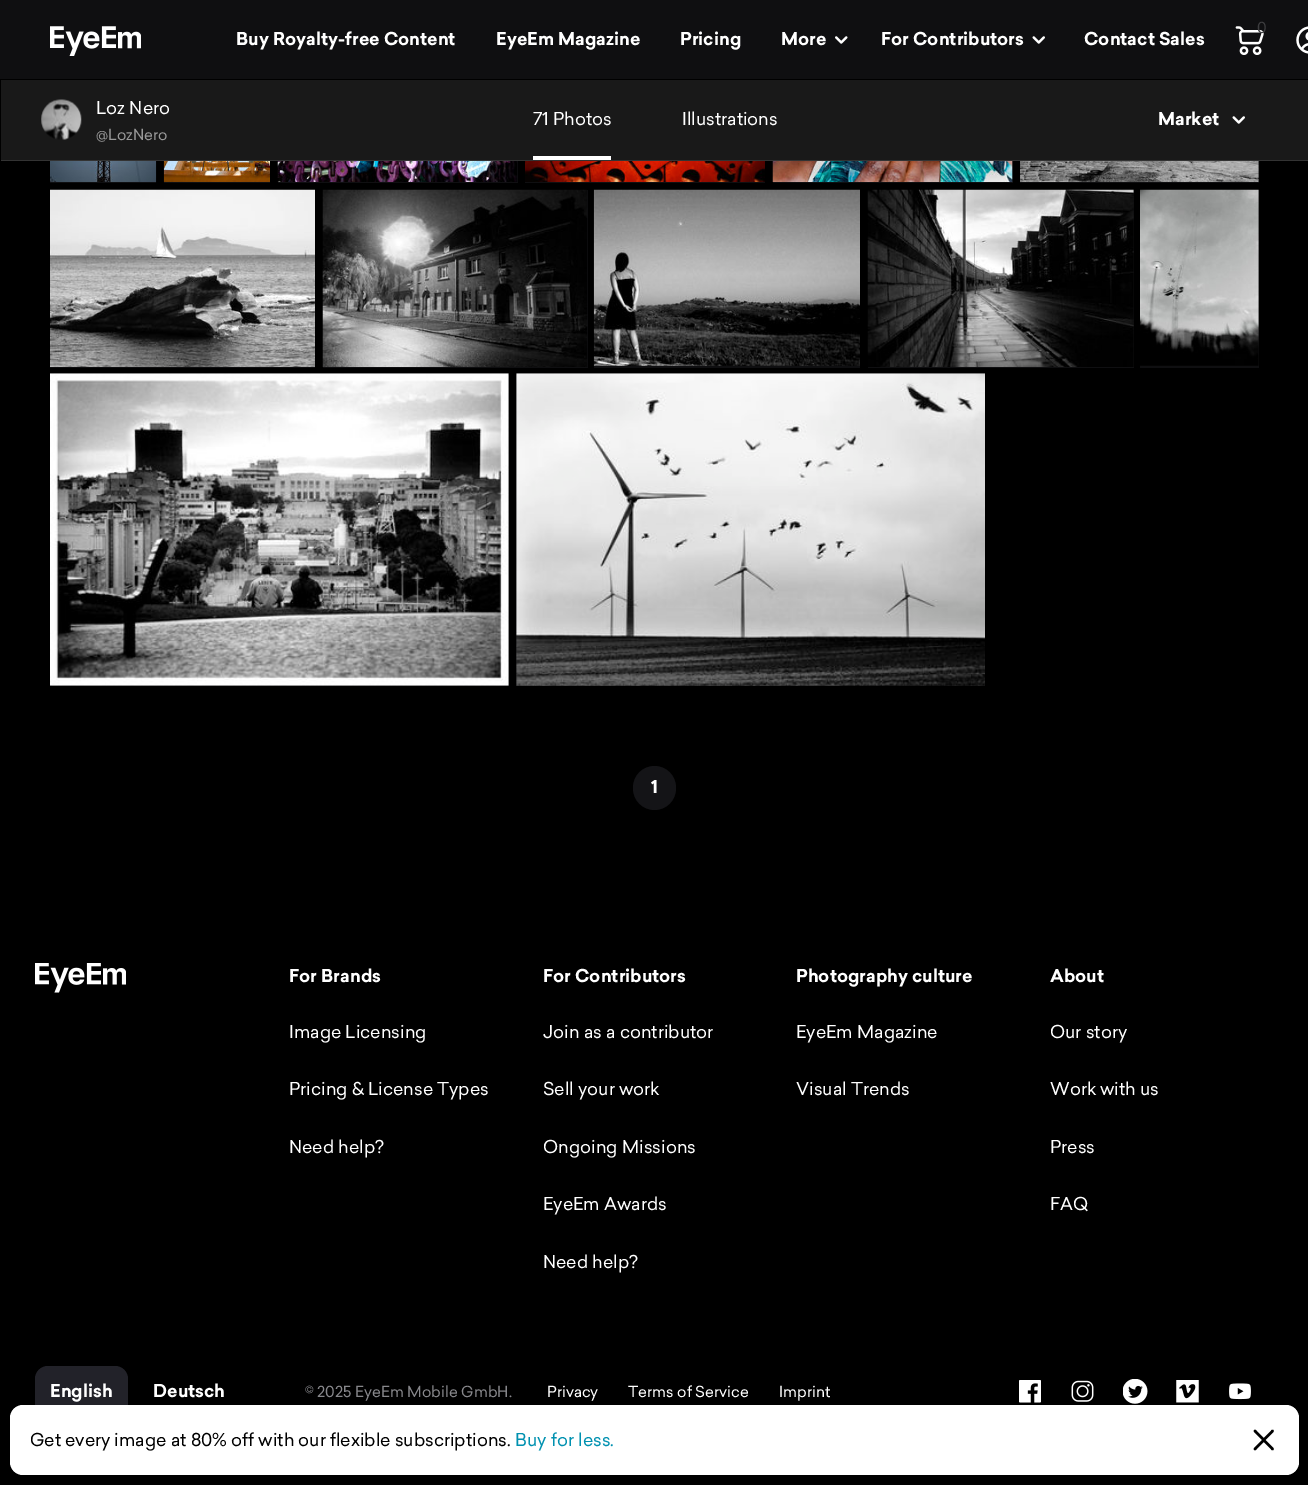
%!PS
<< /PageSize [1308 1485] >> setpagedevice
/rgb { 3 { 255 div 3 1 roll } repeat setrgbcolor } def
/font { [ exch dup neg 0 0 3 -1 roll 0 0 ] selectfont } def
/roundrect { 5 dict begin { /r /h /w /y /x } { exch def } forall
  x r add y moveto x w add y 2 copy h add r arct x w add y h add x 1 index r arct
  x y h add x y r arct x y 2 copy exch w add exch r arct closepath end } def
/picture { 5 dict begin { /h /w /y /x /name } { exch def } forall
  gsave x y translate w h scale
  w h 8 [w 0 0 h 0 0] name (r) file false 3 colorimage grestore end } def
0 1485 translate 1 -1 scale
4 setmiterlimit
0 0 0 rgb
0 0 1308 1485 rectfill
15 15 17 rgb
0 0 1308 79 rectfill
(img/1.rgb) 50 26 91 30 picture
(img/2.rgb) 835 36 13 8 picture
(img/3.rgb) 1032 36 13 8 picture
(img/4.rgb) 1235 26 29 29 picture
(img/5.rgb) 1296 26 12 28 picture
[
  [1 80 1307 80 25 25 25]
  [0 160 1308 1 51 51 51]
  [0 160 1 1 0 0 0]
] { aload pop rgb rectfill } forall
(img/6.rgb) 41 99 41 41 picture
255 255 255 rgb
533 156 78 4 rectfill
(img/7.rgb) 1232 116 13 8 picture
(img/8.rgb) 50 161 107 21 picture
15 15 17 rgb
50 182 106 1 rectfill
(img/9.rgb) 163 161 107 21 picture
164 182 106 1 rectfill
278 161 240 22 rectfill
(img/10.rgb) 277 161 241 21 picture
(img/11.rgb) 525 161 240 21 picture
525 182 240 1 rectfill
773 161 240 22 rectfill
(img/12.rgb) 772 161 241 21 picture
1020 161 239 22 rectfill
(img/13.rgb) 1020 161 239 21 picture
(img/14.rgb) 50 189 265 178 picture
50 367 265 1 rectfill
323 190 265 178 rectfill
(img/15.rgb) 322 189 266 178 picture
594 365 266 3 rectfill
(img/16.rgb) 593 189 267 177 picture
868 190 266 178 rectfill
(img/17.rgb) 867 189 267 178 picture
1140 190 119 178 rectfill
(img/18.rgb) 1140 189 119 177 picture
50 375 459 311 rectfill
(img/19.rgb) 50 373 459 313 picture
516 375 469 311 rectfill
(img/20.rgb) 516 373 469 313 picture
20 20 23 rgb
633 766 43 44 21.5 roundrect fill
(img/21.rgb) 35 963 91 30 picture
34 34 41 rgb
35 1366 93 50 13 roundrect fill
(img/22.rgb) 1019 1380 22 23 picture
(img/23.rgb) 1071 1380 23 22 picture
(img/24.rgb) 1123 1379 25 25 picture
(img/25.rgb) 1176 1380 23 23 picture
(img/26.rgb) 1229 1383 22 17 picture
255 255 255 rgb
10 1405 1289 70 13 roundrect fill
0 0 0 rgb
2.5 setlinewidth
1 setlinecap
1 setlinejoin
1272.5 1431 moveto 1255 1449 lineto 1255 1431 moveto 1272.5 1449 lineto stroke
/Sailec-Bold 17.5 font
255 255 255 rgb
[
  [(Buy Royalty-free Content) 236 45]
  [(EyeEm Magazine) 496 45]
  [(Pricing) 680 45]
  [(More) 781 45]
  [(For Contributors) 881 45]
  [(Contact Sales) 1084 45]
] { aload pop moveto show } forall
/Sailec-Regular 15 font
61 61 63 rgb
1257 33 moveto (0) show
/Sailec-Regular 17.5 font
255 255 255 rgb
96 114 moveto (Loz Nero) show
/Sailec-Regular 15 font
153 153 153 rgb
96 140 moveto (@LozNero) show
/Sailec-Regular 17.5 font
255 255 255 rgb
533 125 moveto (71 Photos) show
682 125 moveto (Illustrations) show
/Sailec-Bold 17.5 font
[
  [(Market) 1158 125]
  [(1) 651 793]
  [(For Brands) 289 982]
] { aload pop moveto show } forall
/Sailec-Regular 17.5 font
[
  [(Image Licensing) 289 1038]
  [(Pricing & License Types) 289 1095]
  [(Need help?) 289 1153]
] { aload pop moveto show } forall
/Sailec-Bold 17.5 font
543 982 moveto (For Contributors) show
/Sailec-Regular 17.5 font
[
  [(Join as a contributor) 543 1038]
  [(Sell your work) 543 1095]
  [(Ongoing Missions) 543 1153]
  [(EyeEm Awards) 543 1210]
  [(Need help?) 543 1268]
] { aload pop moveto show } forall
/Sailec-Bold 17.5 font
796 982 moveto (Photography culture) show
/Sailec-Regular 17.5 font
796 1038 moveto (EyeEm Magazine) show
796 1095 moveto (Visual Trends) show
/Sailec-Bold 17.5 font
1050 982 moveto (About) show
/Sailec-Regular 17.5 font
[
  [(Our story) 1050 1038]
  [(Work with us) 1050 1095]
  [(Press) 1050 1153]
  [(FAQ) 1050 1210]
] { aload pop moveto show } forall
/Sailec-Bold 17.5 font
50 1397 moveto (English) show
153 1397 moveto (Deutsch) show
/Sailec-Regular 15 font
135 135 139 rgb
305 1397 moveto (© 2025 EyeEm Mobile GmbH.) show
255 255 255 rgb
[
  [(Privacy) 547 1397]
  [(Terms of Service) 628 1397]
  [(Imprint) 779 1397]
] { aload pop moveto show } forall
/Sailec-Regular 17.5 font
0 0 0 rgb
30 1446 moveto (Get every image at 80% off with our flexible subscriptions.) show
0 145 176 rgb
515 1446 moveto (Buy for less.) show
showpage
